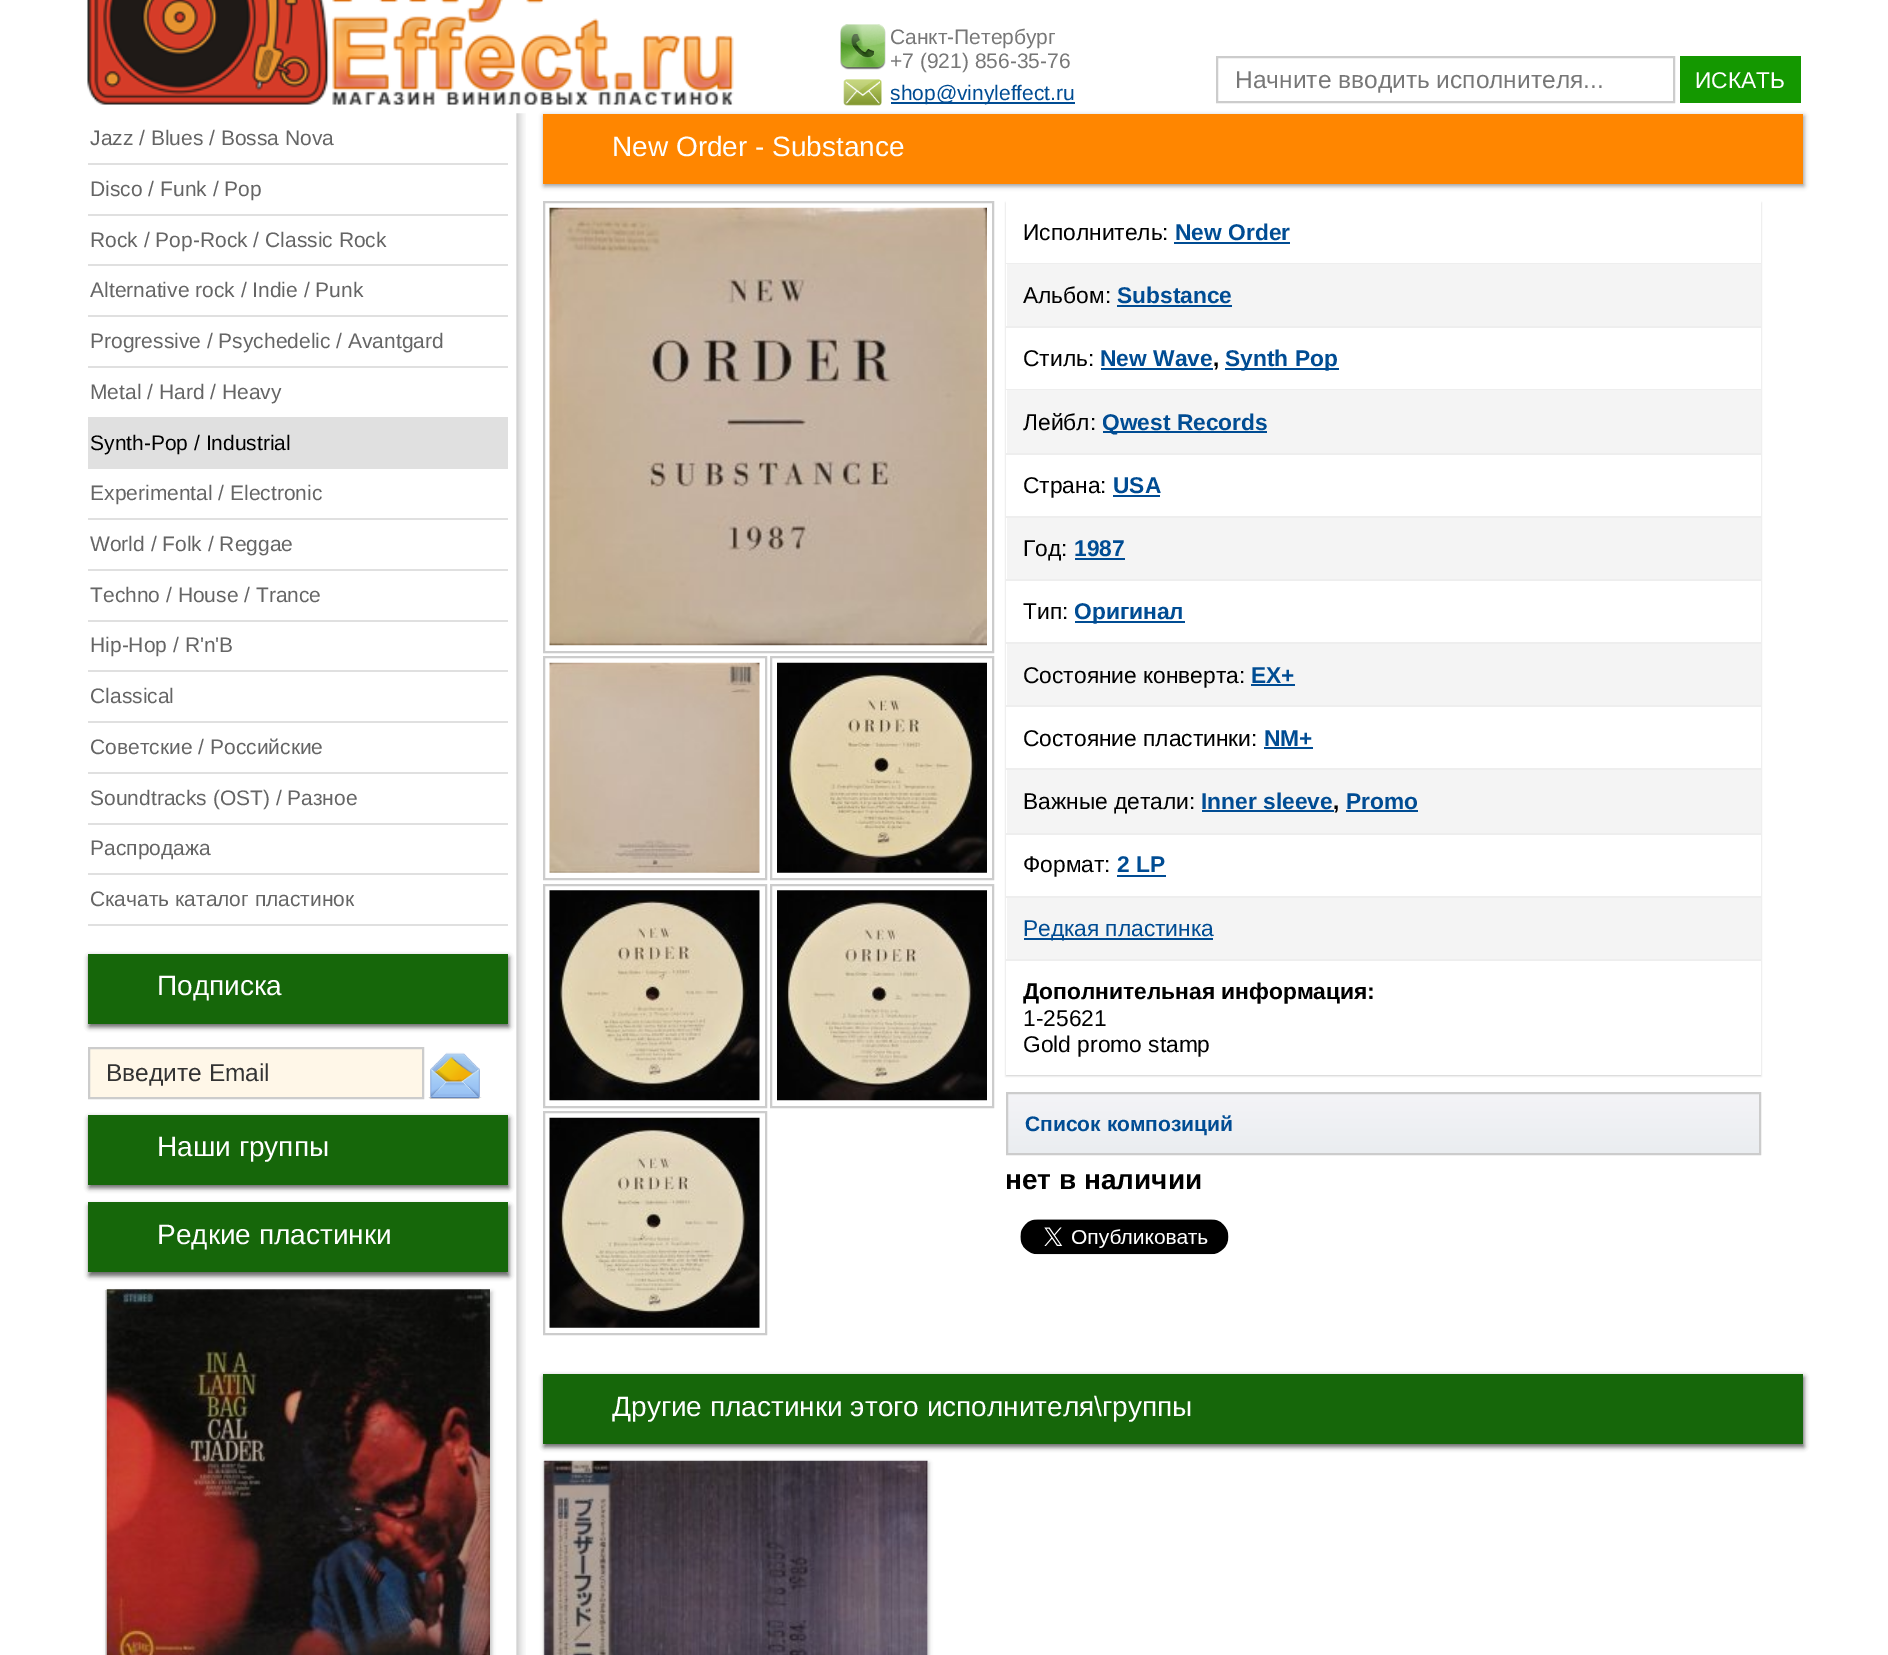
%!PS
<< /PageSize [1888 1655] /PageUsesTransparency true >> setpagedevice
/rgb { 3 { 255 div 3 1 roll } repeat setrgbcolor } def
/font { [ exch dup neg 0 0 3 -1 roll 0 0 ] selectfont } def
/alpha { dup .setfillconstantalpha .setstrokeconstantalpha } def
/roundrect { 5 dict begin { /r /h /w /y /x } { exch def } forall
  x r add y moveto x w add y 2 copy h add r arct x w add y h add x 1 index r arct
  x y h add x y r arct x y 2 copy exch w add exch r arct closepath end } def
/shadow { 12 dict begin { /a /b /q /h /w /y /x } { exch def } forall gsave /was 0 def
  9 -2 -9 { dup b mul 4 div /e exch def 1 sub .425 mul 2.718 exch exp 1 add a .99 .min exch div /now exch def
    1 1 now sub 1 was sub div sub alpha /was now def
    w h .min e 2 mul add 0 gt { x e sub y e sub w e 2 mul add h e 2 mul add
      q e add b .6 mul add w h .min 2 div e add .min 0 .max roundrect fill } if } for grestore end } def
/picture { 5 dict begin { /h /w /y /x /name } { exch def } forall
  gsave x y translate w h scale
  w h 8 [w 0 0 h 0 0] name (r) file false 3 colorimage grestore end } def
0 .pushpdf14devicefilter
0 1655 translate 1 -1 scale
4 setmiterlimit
255 255 255 rgb
0 0 1888 1655 rectfill
(img/1.rgb) 87 0 647 105 picture
(img/2.rgb) 840 24 46 46 picture
(img/3.rgb) 843 79 39 27 picture
0 76 147 rgb
891 102 184 2 rectfill
204 204 204 rgb
2 setlinewidth
1217 57 457 45 rectstroke
20 152 0 rgb
1680 56 121 47 rectfill
(img/4.rgb) 516 113 10 1542 picture
[
  [88 163 420 2 224 224 224]
  [88 214 420 2 224 224 224]
  [88 264 420 2 224 224 224]
  [88 315 420 2 224 224 224]
  [88 366 420 2 224 224 224]
  [88 417 420 52 224 224 224]
  [88 518 420 2 224 224 224]
  [88 569 420 2 224 224 224]
  [88 620 420 2 224 224 224]
  [88 670 420 2 224 224 224]
  [88 721 420 2 224 224 224]
  [88 772 420 2 224 224 224]
  [88 823 420 2 224 224 224]
  [88 873 420 2 224 224 224]
  [88 924 420 2 224 224 224]
] { aload pop rgb rectfill } forall
50 50 50 rgb
89 957 420 70 0 2.5 0.75 shadow
22 103 10 rgb
88 954 420 70 rectfill
255 247 232 rgb
89 1048 moveto 423 1048 lineto 423 1098 lineto 89 1098 lineto closepath gsave fill grestore
204 204 204 rgb
stroke
(img/5.rgb) 428 1052 54 47 picture
50 50 50 rgb
89 1118 420 70 0 2.5 0.75 shadow
22 103 10 rgb
88 1115 420 70 rectfill
50 50 50 rgb
89 1206 420 70 0 2.5 0.75 shadow
22 103 10 rgb
88 1202 420 70 rectfill
50 50 50 rgb
107 1292 385 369 0 2 0.3 shadow
213 213 213 rgb
105 1290 2 365 rectfill
(img/6.rgb) 106 1289 384 366 picture
50 50 50 rgb
544 116 1260 70 0 2.5 0.5 shadow
255 134 0 rgb
543 114 1260 70 rectfill
204 204 204 rgb
544 202 449 450 rectstroke
(img/7.rgb) 549 207 438 439 picture
544 657 222 222 rectstroke
771 657 222 222 rectstroke
(img/8.rgb) 549 662 211 211 picture
(img/9.rgb) 777 662 210 211 picture
544 885 222 222 rectstroke
771 885 222 222 rectstroke
(img/10.rgb) 549 890 211 211 picture
(img/11.rgb) 777 890 210 211 picture
544 1112 222 222 rectstroke
(img/12.rgb) 549 1117 211 211 picture
gsave
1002 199 moveto 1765 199 lineto 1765 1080 lineto 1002 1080 lineto closepath 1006 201 moveto 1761 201 lineto 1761 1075 lineto 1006 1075 lineto closepath eoclip newpath
1006 203 755 873 0 1 1 shadow
grestore
[
  [1006 263 755 1 238 238 238]
  [1174 242 116 2 0 76 147]
  [1007 264 754 62 244 244 244]
  [1006 326 755 2 238 238 238]
  [1117 305 115 2 0 76 147]
  [1006 389 755 1 238 238 238]
  [1101 368 112 2 0 76 147]
  [1225 368 114 2 0 76 147]
  [1007 390 754 63 244 244 244]
  [1006 453 755 2 238 238 238]
  [1103 431 164 2 0 76 147]
  [1006 516 755 2 238 238 238]
  [1113 495 47 2 0 76 147]
  [1007 518 754 61 244 244 244]
  [1006 579 755 2 238 238 238]
  [1075 558 50 2 0 76 147]
  [1006 642 755 2 238 238 238]
  [1075 621 110 2 0 76 147]
  [1007 644 754 61 244 244 244]
  [1006 705 755 2 238 238 238]
  [1251 684 44 2 0 76 147]
  [1006 768 755 2 238 238 238]
  [1264 747 49 2 0 76 147]
  [1007 770 754 63 244 244 244]
  [1006 833 755 2 238 238 238]
  [1202 810 132 2 0 76 147]
  [1346 810 72 2 0 76 147]
  [1006 896 755 2 238 238 238]
  [1117 875 49 2 0 76 147]
  [1007 898 754 61 244 244 244]
  [1006 959 755 2 238 238 238]
  [1024 938 189 2 0 76 147]
] { aload pop rgb rectfill } forall
gsave 1008 1094 moveto 1759 1094 lineto 1759 1153 lineto 1008 1153 lineto closepath clip newpath
<< /ShadingType 2 /ColorSpace /DeviceRGB /Coords [1383 1094 1383 1153] /Extend [true true] /Function << /FunctionType 2 /Domain [0 1] /C0 [0.957 0.957 0.969] /C1 [0.918 0.929 0.941] /N 1 >> >> shfill grestore
204 204 204 rgb
1007 1093 753 61 rectstroke
(img/13.rgb) 1020 1219 209 36 picture
50 50 50 rgb
544 1377 1260 70 0 2.5 0.75 shadow
22 103 10 rgb
543 1374 1260 70 rectfill
50 50 50 rgb
544 1463 385 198 0 2 0.3 shadow
246 246 246 rgb
927 1461 1 194 rectfill
213 213 213 rgb
543 1461 2 194 rectfill
(img/14.rgb) 544 1460 384 195 picture
/LiberationSans-Regular 21 font
119 119 119 rgb
890 44 moveto (Санкт-Петербург) show
890 68 moveto (+7 \(921\) 856-35-76) show
0 76 147 rgb
890 100 moveto (shop@vinyleffect.ru) show
/LiberationSans-Regular 24.5 font
119 119 119 rgb
1235 88 moveto (Начните вводить исполнителя...) show
/LiberationSans-Regular 22.75 font
255 255 255 rgb
1695 88 moveto (ИСКАТЬ) show
/LiberationSans-Regular 21 font
101 101 101 rgb
[
  [(Jazz / Blues / Bossa Nova) 90 145]
  [(Disco / Funk / Pop) 90 196]
  [(Rock / Pop-Rock / Classic Rock) 90 247]
  [(Alternative rock / Indie / Punk) 90 297]
  [(Progressive / Psychedelic / Avantgard) 90 348]
  [(Metal / Hard / Heavy) 90 399]
] { aload pop moveto show } forall
0 0 0 rgb
90 450 moveto (Synth-Pop / Industrial) show
101 101 101 rgb
[
  [(Experimental / Electronic) 90 500]
  [(World / Folk / Reggae) 90 551]
  [(Techno / House / Trance) 90 602]
  [(Hip-Hop / R'n'B) 90 652]
  [(Classical) 90 703]
  [(Советские / Российские) 90 754]
  [(Soundtracks \(OST\) / Разное) 90 805]
  [(Распродажа) 90 855]
  [(Скачать каталог пластинок) 90 906]
] { aload pop moveto show } forall
/LiberationSans-Regular 28 font
255 255 255 rgb
157 995 moveto (Подписка) show
/LiberationSans-Regular 24.5 font
51 51 51 rgb
106 1081 moveto (Введите Email) show
/LiberationSans-Regular 28 font
255 255 255 rgb
[
  [(Наши группы) 157 1156]
  [(Редкие пластинки) 157 1244]
  [(New Order - Substance) 612 156]
] { aload pop moveto show } forall
/LiberationSans-Regular 22.75 font
0 0 0 rgb
1023 240 moveto (Исполнитель:) show
/LiberationSans-Bold 22.75 font
0 76 147 rgb
1175 240 moveto (New Order) show
/LiberationSans-Regular 22.75 font
0 0 0 rgb
1023 303 moveto (Альбом:) show
/LiberationSans-Bold 22.75 font
0 76 147 rgb
1117 303 moveto (Substance) show
/LiberationSans-Regular 22.75 font
0 0 0 rgb
1023 366 moveto (Стиль:) show
/LiberationSans-Bold 22.75 font
0 76 147 rgb
1100 366 moveto (New Wave) show
0 0 0 rgb
1213 366 moveto (,) show
0 76 147 rgb
1225 366 moveto (Synth Pop) show
/LiberationSans-Regular 22.75 font
0 0 0 rgb
1023 430 moveto (Лейбл:) show
/LiberationSans-Bold 22.75 font
0 76 147 rgb
1102 430 moveto (Qwest Records) show
/LiberationSans-Regular 22.75 font
0 0 0 rgb
1023 493 moveto (Страна:) show
/LiberationSans-Bold 22.75 font
0 76 147 rgb
1113 493 moveto (USA) show
/LiberationSans-Regular 22.75 font
0 0 0 rgb
1023 556 moveto (Год:) show
/LiberationSans-Bold 22.75 font
0 76 147 rgb
1074 556 moveto (1987) show
/LiberationSans-Regular 22.75 font
0 0 0 rgb
1023 619 moveto (Тип:) show
/LiberationSans-Bold 22.75 font
0 76 147 rgb
1074 619 moveto (Оригинал) show
/LiberationSans-Regular 22.75 font
0 0 0 rgb
1023 683 moveto (Состояние конверта:) show
/LiberationSans-Bold 22.75 font
0 76 147 rgb
1251 683 moveto (EX+) show
/LiberationSans-Regular 22.75 font
0 0 0 rgb
1023 746 moveto (Состояние пластинки:) show
/LiberationSans-Bold 22.75 font
0 76 147 rgb
1264 746 moveto (NM+) show
/LiberationSans-Regular 22.75 font
0 0 0 rgb
1023 809 moveto (Важные детали:) show
/LiberationSans-Bold 22.75 font
0 76 147 rgb
1201 809 moveto (Inner sleeve) show
0 0 0 rgb
1333 809 moveto (,) show
0 76 147 rgb
1346 809 moveto (Promo) show
/LiberationSans-Regular 22.75 font
0 0 0 rgb
1023 872 moveto (Формат:) show
/LiberationSans-Bold 22.75 font
0 76 147 rgb
1117 872 moveto (2 LP) show
/LiberationSans-Regular 22.75 font
1023 936 moveto (Редкая пластинка) show
/LiberationSans-Bold 22.75 font
0 0 0 rgb
1023 999 moveto (Дополнительная информация:) show
/LiberationSans-Regular 22.75 font
1023 1026 moveto (1-25621) show
1023 1052 moveto (Gold promo stamp) show
/LiberationSans-Bold 21 font
0 76 147 rgb
1025 1131 moveto (Список композиций) show
/LiberationSans-Bold 28 font
0 0 0 rgb
1005 1189 moveto (нет в наличии) show
/LiberationSans-Regular 28 font
255 255 255 rgb
612 1416 moveto (Другие пластинки этого исполнителя\\группы) show
.poppdf14devicefilter showpage
